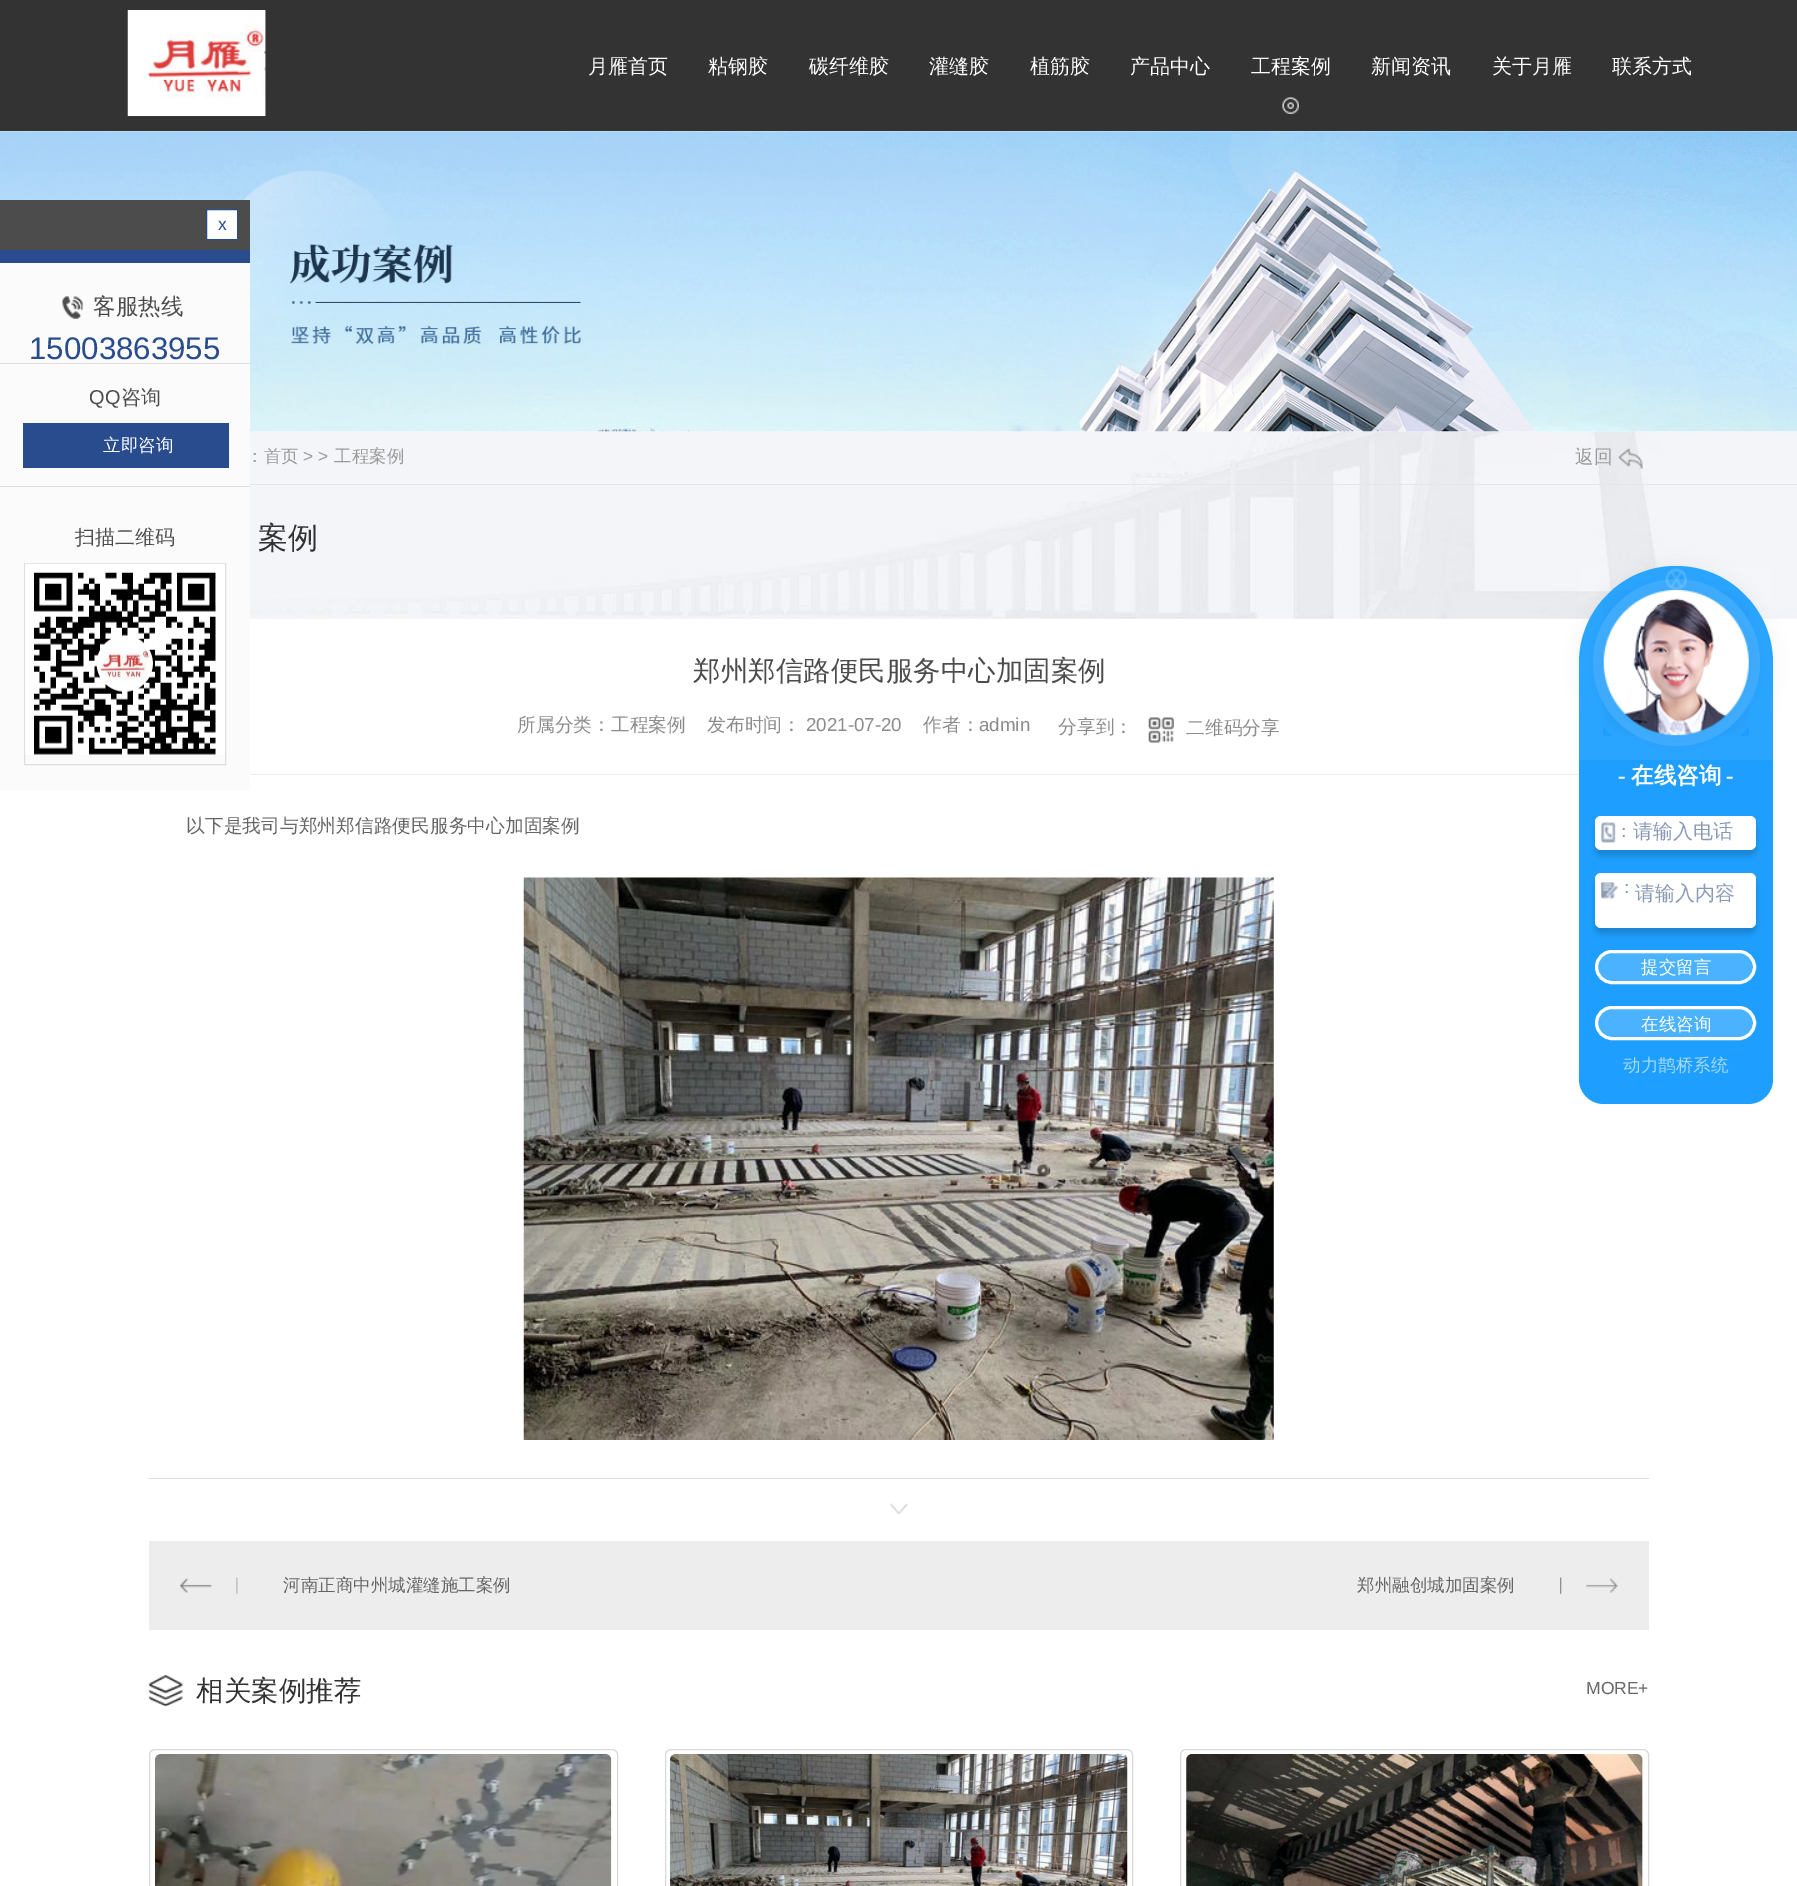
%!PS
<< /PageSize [1797 1886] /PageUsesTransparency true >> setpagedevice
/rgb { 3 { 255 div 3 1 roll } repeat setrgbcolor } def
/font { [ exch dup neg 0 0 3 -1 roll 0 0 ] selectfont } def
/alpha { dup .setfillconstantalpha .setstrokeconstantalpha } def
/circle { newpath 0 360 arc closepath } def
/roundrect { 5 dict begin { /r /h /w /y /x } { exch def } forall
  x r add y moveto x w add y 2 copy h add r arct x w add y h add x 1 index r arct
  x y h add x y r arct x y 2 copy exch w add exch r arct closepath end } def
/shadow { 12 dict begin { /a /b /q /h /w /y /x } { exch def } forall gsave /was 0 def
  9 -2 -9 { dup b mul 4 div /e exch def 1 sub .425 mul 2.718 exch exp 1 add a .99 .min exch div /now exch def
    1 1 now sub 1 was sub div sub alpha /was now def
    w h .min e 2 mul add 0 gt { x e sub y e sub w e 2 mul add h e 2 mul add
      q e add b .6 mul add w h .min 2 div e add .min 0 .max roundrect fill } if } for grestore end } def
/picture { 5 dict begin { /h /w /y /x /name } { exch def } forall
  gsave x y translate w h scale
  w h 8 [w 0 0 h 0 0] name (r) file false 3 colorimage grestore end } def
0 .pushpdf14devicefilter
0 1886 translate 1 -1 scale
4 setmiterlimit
255 255 255 rgb
0 0 1797 1886 rectfill
51 51 51 rgb
0 0 1797 131 rectfill
(img/1.rgb) 127 10 139 107 picture
(img/2.rgb) 1282 97 17 17 picture
(img/6.rgb) 250 431 1547 188 picture
(img/3.rgb) 0 131 1797 301 picture
76 76 76 rgb
0 200 250 50 rectfill
255 255 255 rgb
206.5 209.5 moveto 237.5 209.5 lineto 237.5 239.5 lineto 206.5 239.5 lineto closepath gsave fill grestore
40 76 141 rgb
stroke
251 251 251 rgb
0 263 250 100 rectfill
40 76 141 rgb
0 250 250 13 rectfill
(img/4.rgb) 62 296 21 23 picture
[
  [0 364 250 426 251 251 251]
  [0 363 250 1 222 222 222]
  [0 486 250 1 222 222 222]
  [23 423 206 45 40 76 141]
] { aload pop rgb rectfill } forall
222 222 222 rgb
24.5 563.5 201 201 rectstroke
(img/5.rgb) 25 563 200 192 picture
230 230 230 rgb
250 484 1547 1 rectfill
(img/7.rgb) 1618 448 25 21 picture
(img/8.rgb) 1148 717 26 26 picture
237 237 237 rgb
250 774 1329 1 rectfill
221 221 221 rgb
149 1478 1500 1 rectfill
(img/9.rgb) 523 877 751 563 picture
(img/10.rgb) 890 1503 18 11 picture
237 237 237 rgb
149 1541 1500 89 rectfill
(img/11.rgb) 180 1577 58 17 picture
(img/12.rgb) 1560 1577 58 17 picture
0 0 0 rgb
1579 566 194 194 97 9.5 0.05 shadow
30 159 255 rgb
1676 566 moveto 1729.5 566 1773 609.5 1773 663 curveto 1773 760 lineto 1579 760 lineto 1579 663 lineto 1579 609.5 1622.5 566 1676 566 curveto closepath fill
0.05 alpha
255 255 255 rgb
1579 566 194 194 rectfill
0.1 alpha
1676.5 662.5 83.5 circle fill
1 alpha
30 159 255 rgb
1579 760 moveto 1773 760 lineto 1773 1079 lineto 1773 1093 1762 1104 1748 1104 curveto 1604 1104 lineto 1590 1104 1579 1093 1579 1079 curveto closepath fill
0 0 0 rgb
1604 590 145 145 72.5 9.5 0.05 shadow
0.6 alpha
30 159 255 rgb
1676.5 662.5 72.5 circle fill
1 alpha
(img/13.rgb) 1603 590 146 146 picture
(img/14.rgb) 1665 568 22 22 picture
0 0 0 rgb
1595 823 161 33 6 3 0.17 shadow
255 255 255 rgb
1595 816 161 34 6 roundrect fill
(img/15.rgb) 1601 822 15 21 picture
0 0 0 rgb
1595 879 161 55 6 3 0.17 shadow
255 255 255 rgb
1595 873 161 55 6 roundrect fill
(img/16.rgb) 1601 882 18 18 picture
75 178 255 rgb
1596.5 951.5 158 31 15.5 roundrect gsave fill grestore
255 255 255 rgb
3 setlinewidth
stroke
75 178 255 rgb
1596.5 1007.5 158 31 15.5 roundrect gsave fill grestore
255 255 255 rgb
stroke
(img/17.rgb) 148 1675 35 32 picture
216 216 216 rgb
1 setlinewidth
155 1749.5 moveto 612 1749.5 lineto 615 1749.5 617.5 1752 617.5 1755 curveto 617.5 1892.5 lineto 149.5 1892.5 lineto 149.5 1755 lineto 149.5 1752 152 1749.5 155 1749.5 curveto closepath stroke
(img/18.rgb) 155 1754 457 132 picture
671 1749.5 moveto 1127 1749.5 lineto 1130 1749.5 1132.5 1752 1132.5 1755 curveto 1132.5 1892.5 lineto 665.5 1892.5 lineto 665.5 1755 lineto 665.5 1752 668 1749.5 671 1749.5 curveto closepath stroke
(img/19.rgb) 670 1754 458 132 picture
1186 1749.5 moveto 1643 1749.5 lineto 1646 1749.5 1648.5 1752 1648.5 1755 curveto 1648.5 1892.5 lineto 1180.5 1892.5 lineto 1180.5 1755 lineto 1180.5 1752 1183 1749.5 1186 1749.5 curveto closepath stroke
(img/20.rgb) 1186 1754 457 132 picture
/WenQuanYiZenHei-Medium 20 font
255 255 255 rgb
[
  [(月雁首页) 588 73]
  [(粘钢胶) 708 73]
  [(碳纤维胶) 809 73]
  [(灌缝胶) 929 73]
  [(植筋胶) 1030 73]
  [(产品中心) 1130 73]
  [(工程案例) 1251 73]
  [(新闻资讯) 1371 73]
  [(关于月雁) 1492 73]
  [(联系方式) 1612 73]
] { aload pop moveto show } forall
/LiberationSans-Regular 17.5 font
40 76 141 rgb
218 230 moveto (x) show
/WenQuanYiZenHei-Medium 22.5 font
76 76 76 rgb
93 314 moveto (客服热线) show
/LiberationSans-Regular 31.25 font
40 76 141 rgb
29 359 moveto (15003863955) show
/LiberationSans-Regular 20 font
76 76 76 rgb
89 404 moveto (QQ) show
/WenQuanYiZenHei-Medium 20 font
121 404 moveto (咨询) show
/WenQuanYiZenHei-Medium 17.5 font
255 255 255 rgb
103 451 moveto (立即咨询) show
/WenQuanYiZenHei-Medium 20 font
76 76 76 rgb
75 544 moveto (扫描二维码) show
/WenQuanYiZenHei-Medium 17.5 font
153 153 153 rgb
246 462 moveto (：首页) show
/LiberationSans-Regular 17.5 font
303 462 moveto (> >) show
/WenQuanYiZenHei-Medium 17.5 font
334 462 moveto (工程案例) show
/WenQuanYiZenHei-Medium 18.75 font
1575 463 moveto (返回) show
/WenQuanYiZenHei-Medium 30 font
51 51 51 rgb
258 548 moveto (案例) show
/WenQuanYiZenHei-Medium 27.5 font
76 76 76 rgb
693 680 moveto (郑州郑信路便民服务中心加固案例) show
/WenQuanYiZenHei-Medium 18.75 font
140 140 140 rgb
517 731 moveto (所属分类：工程案例) show
707 731 moveto (发布时间：) show
/LiberationSans-Regular 18.75 font
806 731 moveto (2021-07-20) show
/WenQuanYiZenHei-Medium 18.75 font
923 731 moveto (作者：) show
/LiberationSans-Regular 18.75 font
979 731 moveto (admin) show
/WenQuanYiZenHei-Medium 18.75 font
1058 733 moveto (分享到：) show
1186 734 moveto (二维码分享) show
102 102 102 rgb
186 832 moveto (以下是我司与郑州郑信路便民服务中心加固案例) show
/WenQuanYiZenHei-Medium 17.5 font
283 1591 moveto (河南正商中州城灌缝施工案例) show
1357 1591 moveto (郑州融创城加固案例) show
/LiberationSerif-Bold 22.5 font
255 255 255 rgb
1618 783 moveto (-) show
/WenQuanYiZenHei-Bold 22.5 font
1631 783 moveto (在线咨询) show
/LiberationSerif-Bold 22.5 font
1726 783 moveto (-) show
/WenQuanYiZenHei-Medium 17.5 font
138 153 180 rgb
1615 837 moveto (：) show
/WenQuanYiZenHei-Medium 20 font
1633 838 moveto (请输入电话) show
/WenQuanYiZenHei-Medium 17.5 font
1618 893 moveto (：) show
/WenQuanYiZenHei-Medium 20 font
1635 900 moveto (请输入内容) show
/WenQuanYiZenHei-Medium 17.5 font
255 255 255 rgb
1641 973 moveto (提交留言) show
1641 1030 moveto (在线咨询) show
165 217 255 rgb
1623 1071 moveto (动力鹊桥系统) show
/WenQuanYiZenHei-Medium 27.5 font
51 51 51 rgb
196 1700 moveto (相关案例推荐) show
/LiberationSans-Regular 17.5 font
102 102 102 rgb
1586 1694 moveto (MORE+) show
.poppdf14devicefilter showpage
